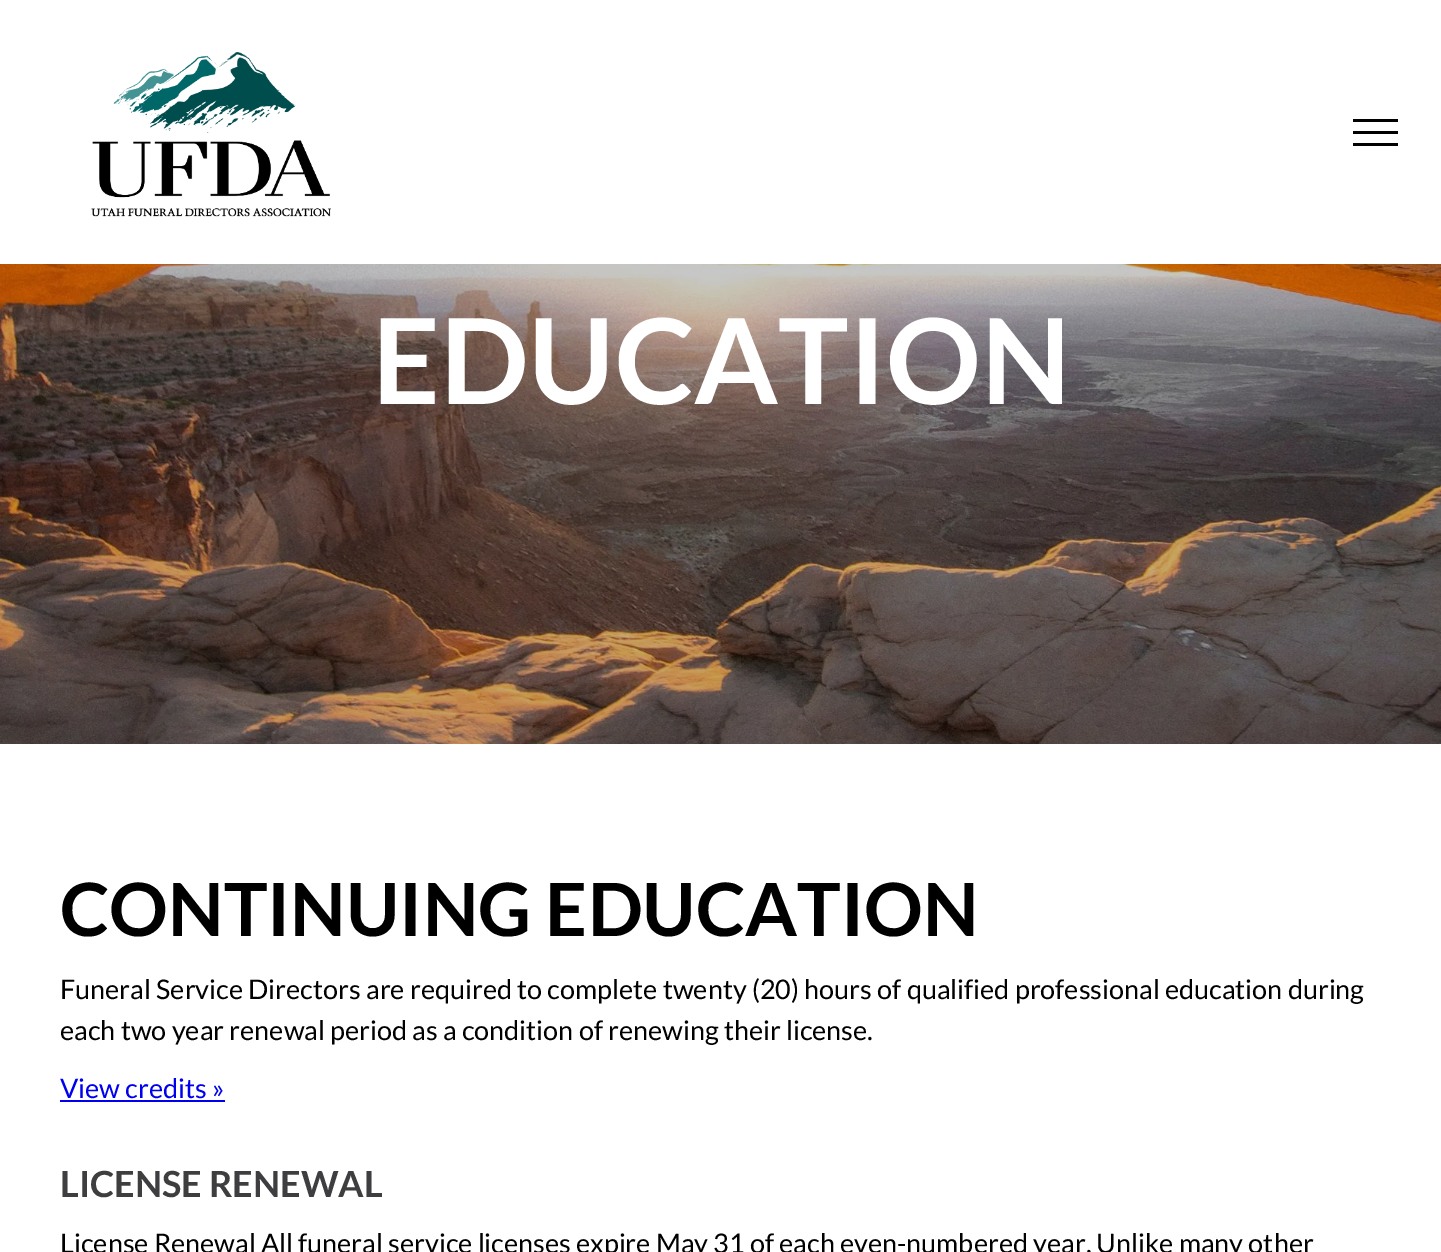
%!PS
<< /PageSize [1441 1252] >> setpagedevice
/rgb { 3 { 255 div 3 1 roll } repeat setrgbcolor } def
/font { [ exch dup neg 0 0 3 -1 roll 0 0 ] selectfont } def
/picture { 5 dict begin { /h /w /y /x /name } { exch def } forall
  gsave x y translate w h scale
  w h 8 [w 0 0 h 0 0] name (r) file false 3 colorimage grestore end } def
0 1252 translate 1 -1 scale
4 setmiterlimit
255 255 255 rgb
0 0 1441 1252 rectfill
(img/1.rgb) 91 52 240 165 picture
[
  [1353 119 45 3 0 0 0]
  [1353 131 45 3 0 0 0]
  [1353 143 45 3 0 0 0]
] { aload pop rgb rectfill } forall
(img/2.rgb) 0 264 1441 480 picture
0 0 238 rgb
60 1100 165 2 rectfill
/Lato-Bold 118.5 font
255 255 255 rgb
372 404 moveto (EDUCATION) show
/Lato-Bold 73.5 font
0 0 0 rgb
60 936 moveto (CONTINUING EDUCATION) show
/Lato-Regular 27 font
60 999 moveto (Funeral Service Directors are required to complete twenty \(20\) hours of qualified professional education during) show
60 1040 moveto (each two year renewal period as a condition of renewing their license.) show
0 0 238 rgb
60 1098 moveto (View credits ») show
/Lato-Bold 36 font
62 62 64 rgb
60 1197 moveto (LICENSE RENEWAL) show
/Lato-Regular 27 font
0 0 0 rgb
60 1253 moveto (License Renewal All funeral service licenses expire May 31 of each even-numbered year. Unlike many other) show
showpage
